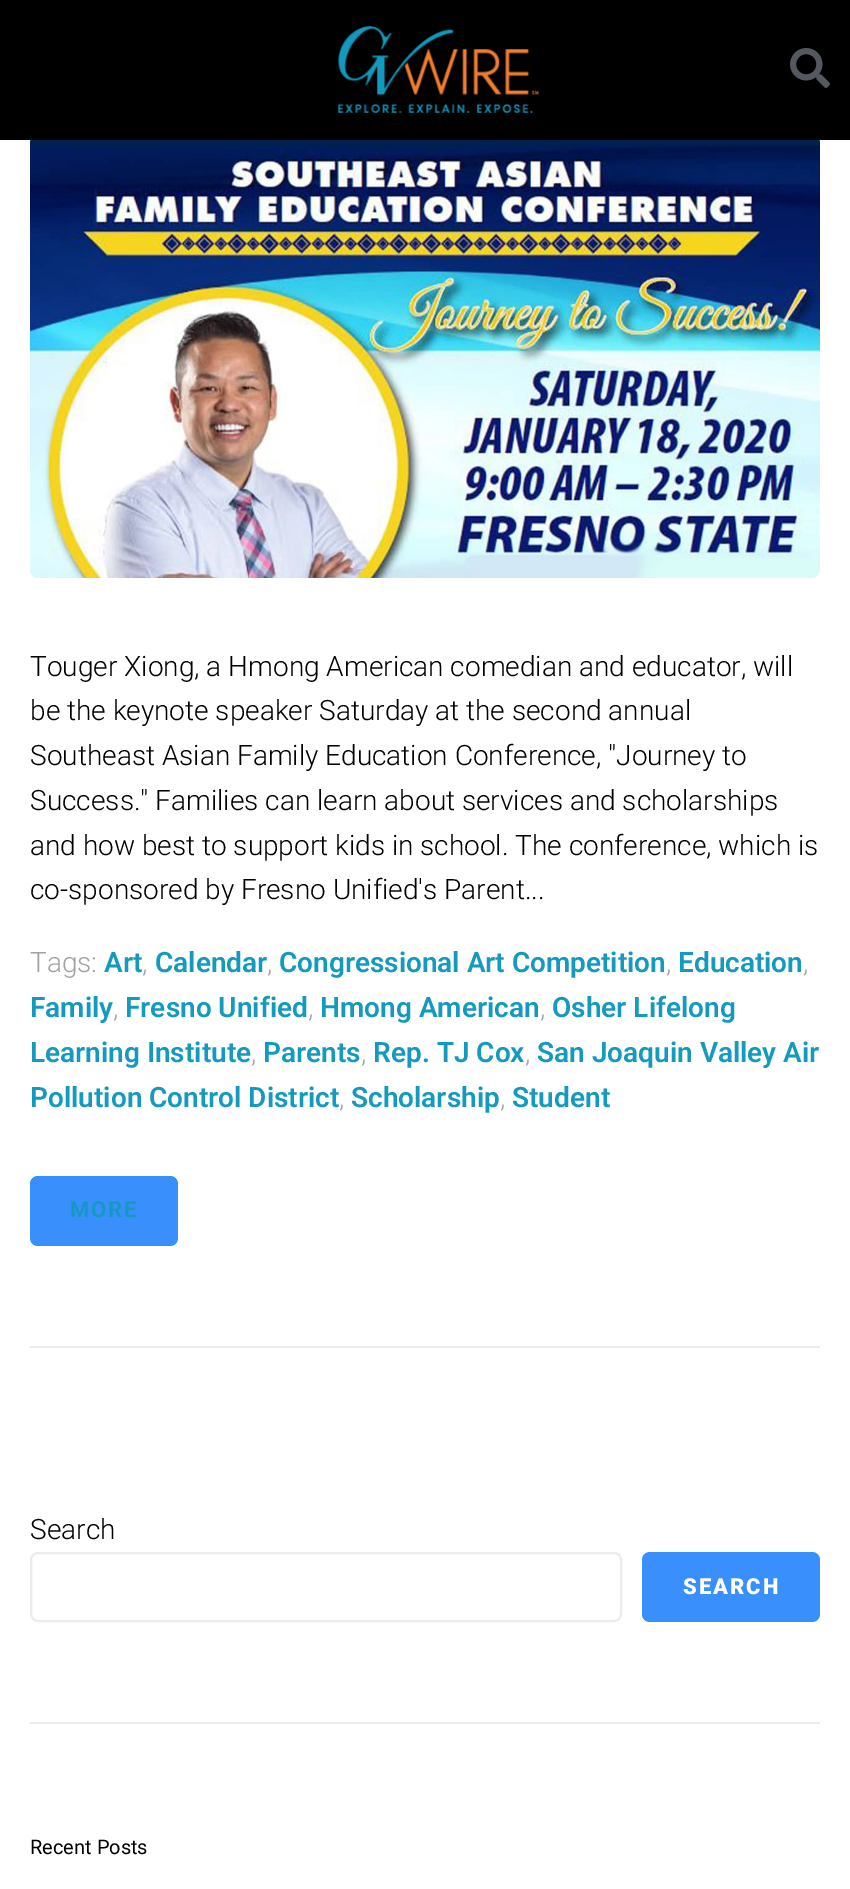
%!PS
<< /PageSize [850 1889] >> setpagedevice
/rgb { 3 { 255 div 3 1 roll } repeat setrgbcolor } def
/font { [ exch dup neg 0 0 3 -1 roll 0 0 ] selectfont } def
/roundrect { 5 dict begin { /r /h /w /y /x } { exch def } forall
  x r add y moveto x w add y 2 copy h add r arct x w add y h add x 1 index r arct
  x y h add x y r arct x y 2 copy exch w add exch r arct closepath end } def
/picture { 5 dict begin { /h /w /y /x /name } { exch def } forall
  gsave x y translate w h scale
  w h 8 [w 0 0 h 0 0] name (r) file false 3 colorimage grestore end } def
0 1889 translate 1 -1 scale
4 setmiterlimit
255 255 255 rgb
0 0 850 1889 rectfill
0 0 0 rgb
0 0 850 140 rectfill
(img/1.rgb) 337 26 203 87 picture
(img/2.rgb) 790 48 40 40 picture
(img/3.rgb) 30 140 790 438 picture
57 143 252 rgb
30 1176 148 70 8 roundrect fill
235 236 237 rgb
30 1346 790 2 rectfill
2 setlinewidth
31 1553 590 68 7 roundrect stroke
57 143 252 rgb
642 1552 178 70 8 roundrect fill
235 236 237 rgb
30 1722 790 2 rectfill
/Roboto-Light 28 font
0 0 0 rgb
[
  [(Touger Xiong, a Hmong American comedian and educator, will) 30 676]
  [(be the keynote speaker Saturday at the second annual) 30 720]
  [(Southeast Asian Family Education Conference, "Journey to) 30 765]
  [(Success." Families can learn about services and scholarships) 30 810]
  [(and how best to support kids in school. The conference, which is) 30 855]
  [(co-sponsored by Fresno Unified's Parent...) 30 899]
] { aload pop moveto show } forall
161 162 164 rgb
30 972 moveto (Tags:) show
/Roboto-SemiBold 28 font
19 154 190 rgb
104 972 moveto (Art) show
/Roboto-Light 28 font
161 162 164 rgb
142 972 moveto (,) show
/Roboto-SemiBold 28 font
19 154 190 rgb
155 972 moveto (Calendar) show
/Roboto-Light 28 font
161 162 164 rgb
267 972 moveto (,) show
/Roboto-SemiBold 28 font
19 154 190 rgb
279 972 moveto (Congressional Art Competition) show
/Roboto-Light 28 font
161 162 164 rgb
666 972 moveto (,) show
/Roboto-SemiBold 28 font
19 154 190 rgb
678 972 moveto (Education) show
/Roboto-Light 28 font
161 162 164 rgb
803 972 moveto (,) show
/Roboto-SemiBold 28 font
19 154 190 rgb
30 1017 moveto (Family) show
/Roboto-Light 28 font
161 162 164 rgb
113 1017 moveto (,) show
/Roboto-SemiBold 28 font
19 154 190 rgb
125 1017 moveto (Fresno Unified) show
/Roboto-Light 28 font
161 162 164 rgb
308 1017 moveto (,) show
/Roboto-SemiBold 28 font
19 154 190 rgb
320 1017 moveto (Hmong American) show
/Roboto-Light 28 font
161 162 164 rgb
540 1017 moveto (,) show
/Roboto-SemiBold 28 font
19 154 190 rgb
552 1017 moveto (Osher Lifelong) show
30 1062 moveto (Learning Institute) show
/Roboto-Light 28 font
161 162 164 rgb
251 1062 moveto (,) show
/Roboto-SemiBold 28 font
19 154 190 rgb
263 1062 moveto (Parents) show
/Roboto-Light 28 font
161 162 164 rgb
361 1062 moveto (,) show
/Roboto-SemiBold 28 font
19 154 190 rgb
373 1062 moveto (Rep. TJ Cox) show
/Roboto-Light 28 font
161 162 164 rgb
525 1062 moveto (,) show
/Roboto-SemiBold 28 font
19 154 190 rgb
537 1062 moveto (San Joaquin Valley Air) show
30 1107 moveto (Pollution Control District) show
/Roboto-Light 28 font
161 162 164 rgb
339 1107 moveto (,) show
/Roboto-SemiBold 28 font
19 154 190 rgb
351 1107 moveto (Scholarship) show
/Roboto-Light 28 font
161 162 164 rgb
500 1107 moveto (,) show
/Roboto-SemiBold 28 font
19 154 190 rgb
512 1107 moveto (Student) show
/Roboto-SemiBold 22 font
70 1217 moveto 2 0 (MORE) ashow
/Roboto-Light 28 font
0 0 0 rgb
30 1539 moveto (Search) show
/Roboto-Black 22 font
255 255 255 rgb
683 1594 moveto 2 0 (SEARCH) ashow
/Roboto-Regular 20 font
0 0 0 rgb
30 1854 moveto (Recent Posts) show
showpage
